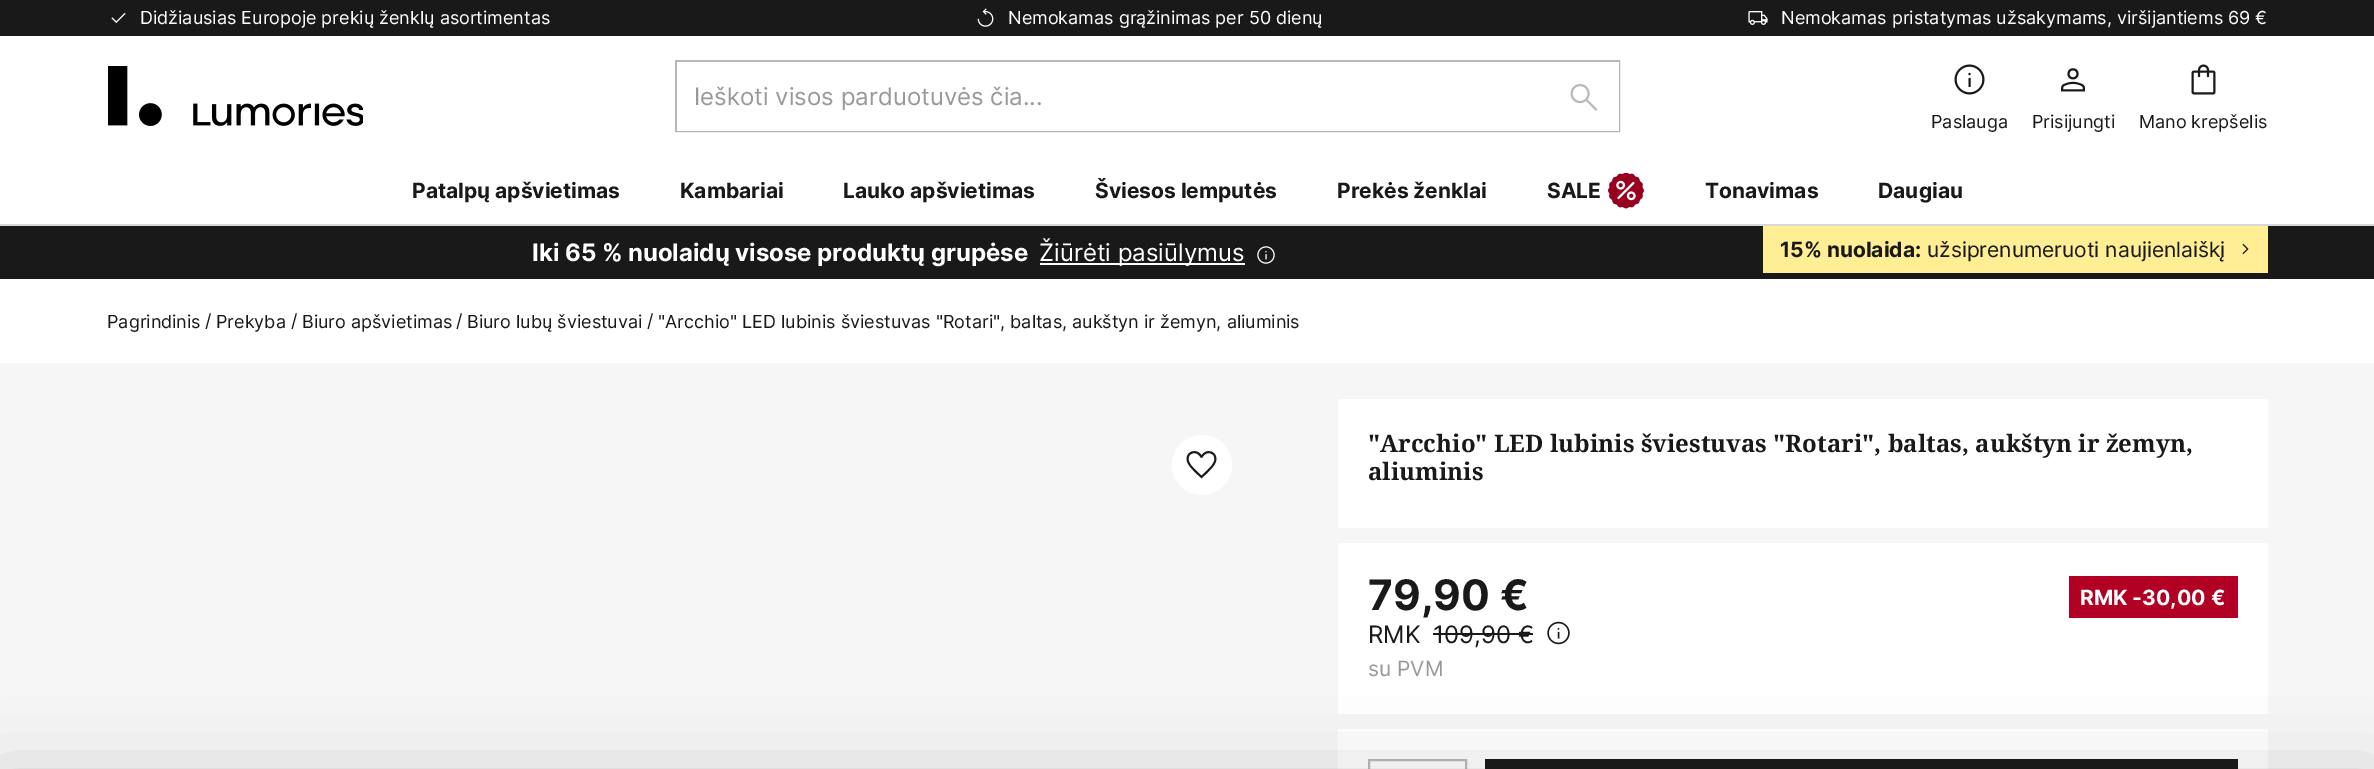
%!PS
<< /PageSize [2374 769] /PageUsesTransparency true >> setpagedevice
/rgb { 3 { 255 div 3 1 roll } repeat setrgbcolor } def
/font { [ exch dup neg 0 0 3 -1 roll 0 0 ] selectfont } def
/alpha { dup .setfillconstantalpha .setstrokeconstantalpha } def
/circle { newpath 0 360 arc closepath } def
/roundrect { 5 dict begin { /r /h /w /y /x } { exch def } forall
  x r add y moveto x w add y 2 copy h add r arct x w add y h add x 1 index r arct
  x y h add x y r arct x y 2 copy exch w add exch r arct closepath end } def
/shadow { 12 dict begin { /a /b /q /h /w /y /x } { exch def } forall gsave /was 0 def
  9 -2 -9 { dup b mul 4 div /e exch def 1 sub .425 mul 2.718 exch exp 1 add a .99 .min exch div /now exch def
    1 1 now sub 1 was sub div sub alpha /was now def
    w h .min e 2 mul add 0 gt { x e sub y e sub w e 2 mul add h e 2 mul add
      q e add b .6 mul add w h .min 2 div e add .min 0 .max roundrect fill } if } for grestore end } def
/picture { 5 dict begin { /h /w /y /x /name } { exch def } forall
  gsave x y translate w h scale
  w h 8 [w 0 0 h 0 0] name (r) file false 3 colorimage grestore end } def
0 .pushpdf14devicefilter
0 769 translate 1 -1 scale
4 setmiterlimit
255 255 255 rgb
0 0 2374 769 rectfill
25 25 25 rgb
0 0 2374 36 rectfill
(img/1.rgb) 111 12 15 11 picture
(img/2.rgb) 977 8 17 19 picture
(img/3.rgb) 1748 11 20 14 picture
(img/4.rgb) 108 66 255 60 picture
184 184 184 rgb
2 setlinewidth
676 61 943 70 rectstroke
255 255 255 rgb
677 62 942 69 rectfill
(img/5.rgb) 1570 84 28 27 picture
(img/6.rgb) 1954 64 31 31 picture
(img/7.rgb) 2061 68 24 24 picture
(img/8.rgb) 2191 64 25 31 picture
216 216 216 rgb
0 224 2374 2 rectfill
(img/9.rgb) 1608 173 36 36 picture
25 25 25 rgb
0 226 2374 53 rectfill
255 255 255 rgb
1040 263 205 2 rectfill
(img/10.rgb) 1257 246 18 18 picture
255 238 147 rgb
1763 226 505 47 rectfill
(img/11.rgb) 2242 243 7 12 picture
246 246 246 rgb
0 363 2374 406 rectfill
255 255 255 rgb
1202 465 30 circle fill
(img/12.rgb) 1186 451 31 28 picture
[
  [1338 399 930 129 255 255 255]
  [1338 543 930 171 255 255 255]
  [2069 576 169 42 178 0 37]
  [1433 633 100 2 25 25 25]
] { aload pop rgb rectfill } forall
(img/13.rgb) 1547 621 23 24 picture
255 255 255 rgb
1338 729 930 40 rectfill
184 184 184 rgb
1369 760 97 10 rectstroke
25 25 25 rgb
1485 759 753 10 rectfill
0 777 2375 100 0 36 0.2 shadow
/Inter-Regular 18 font
255 255 255 rgb
[
  [(Didžiausias Europoje prekių ženklų asortimentas) 140 24]
  [(Nemokamas grąžinimas per 50 dienų) 1008 24]
  [(Nemokamas pristatymas užsakymams, viršijantiems 69 €) 1781 24]
] { aload pop moveto show } forall
/Inter-Regular 24 font
153 153 153 rgb
694 105 moveto (Ieškoti visos parduotuvės čia...) show
/Inter-Regular 18 font
25 25 25 rgb
[
  [(Paslauga) 1931 128]
  [(Prisijungti) 2032 128]
  [(Mano krepšelis) 2139 128]
] { aload pop moveto show } forall
/Inter-Bold 21 font
[
  [(Patalpų apšvietimas) 412 198]
  [(Kambariai) 680 198]
  [(Lauko apšvietimas) 843 198]
  [(Šviesos lemputės) 1095 198]
  [(Prekės ženklai) 1337 198]
  [(SALE) 1547 198]
  [(Tonavimas) 1705 198]
  [(Daugiau) 1878 198]
] { aload pop moveto show } forall
/Inter-Bold 24 font
255 255 255 rgb
532 261 moveto (Iki 65 % nuolaidų visose produktų grupėse) show
/Inter-Regular 24 font
1039 261 moveto (Žiūrėti pasiūlymus) show
gsave
1781 225 445 48 rectclip
/Inter-Bold 21 font
25 25 25 rgb
1780 257 moveto (15% nuolaida:) show
grestore
/Inter-Regular 21 font
25 25 25 rgb
1927 257 moveto (užsiprenumeruoti naujienlaiškį) show
/Inter-Regular 18 font
[
  [(Pagrindinis) 107 328]
  [(/) 205 327]
  [(Prekyba) 216 328]
  [(/) 291 327]
  [(Biuro apšvietimas) 302 328]
  [(/) 456 327]
  [(Biuro lubų šviestuvai) 467 328]
  [(/) 647 327]
  [("Arcchio" LED lubinis šviestuvas "Rotari", baltas, aukštyn ir žemyn, aliuminis) 658 328]
] { aload pop moveto show } forall
/NotoSerif-Bold 24 font
1368 452 moveto ("Arcchio" LED lubinis šviestuvas "Rotari", baltas, aukštyn ir žemyn,) show
1368 480 moveto (aliuminis) show
/Inter-Bold 42 font
1368 610 moveto (79,90 €) show
/Inter-Bold 21 font
255 255 255 rgb
2080 605 moveto (RMK -30,00 €) show
/Inter-Regular 24 font
25 25 25 rgb
1368 643 moveto (RMK) show
1433 643 moveto (109,90 €) show
/Inter-Regular 21 font
153 153 153 rgb
1368 676 moveto (su PVM) show
.poppdf14devicefilter showpage
